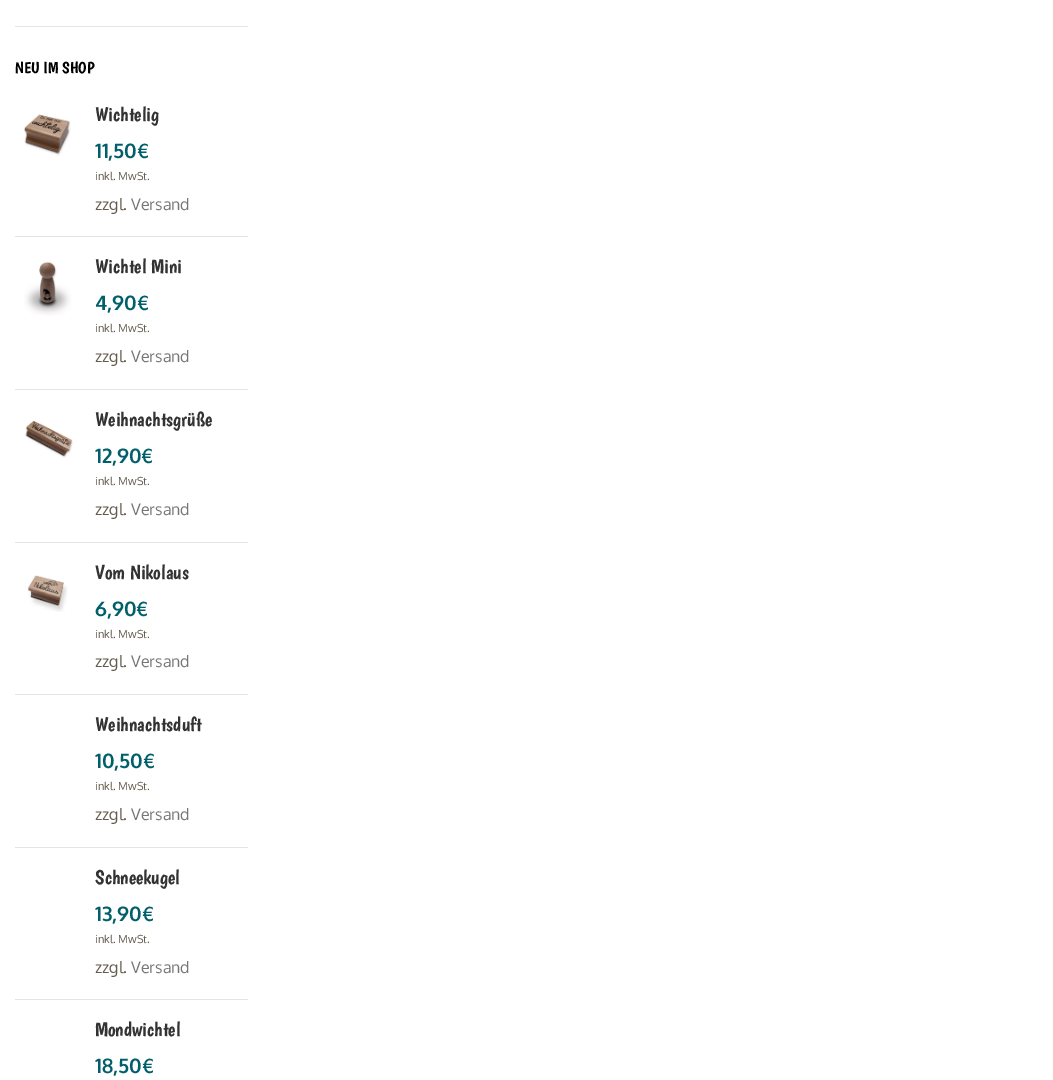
%!PS
<< /PageSize [1053 1080] >> setpagedevice
/rgb { 3 { 255 div 3 1 roll } repeat setrgbcolor } def
/font { [ exch dup neg 0 0 3 -1 roll 0 0 ] selectfont } def
/picture { 5 dict begin { /h /w /y /x /name } { exch def } forall
  gsave x y translate w h scale
  w h 8 [w 0 0 h 0 0] name (r) file false 3 colorimage grestore end } def
0 1080 translate 1 -1 scale
4 setmiterlimit
255 255 255 rgb
0 0 1053 1080 rectfill
228 228 228 rgb
15 26 233 1 rectfill
15 236 233 1 rectfill
(img/1.rgb) 24 114 47 42 picture
15 389 233 1 rectfill
(img/2.rgb) 24 261 47 55 picture
15 542 233 1 rectfill
(img/3.rgb) 25 420 48 38 picture
15 694 233 1 rectfill
(img/4.rgb) 27 575 41 37 picture
15 847 233 1 rectfill
15 999 233 1 rectfill
/Boogaloo-Regular 16 font
0 0 0 rgb
15 73 moveto (NEU IM SHOP) show
/Boogaloo-Regular 20 font
51 51 51 rgb
95 121 moveto (Wichtelig) show
/Oxygen-Bold 20 font
0 95 106 rgb
95 158 moveto (11,50€) show
/Oxygen-Regular 11 font
99 91 77 rgb
95 180 moveto (inkl. MwSt.) show
/Oxygen-Regular 16 font
95 210 moveto (zzgl.) show
118 118 118 rgb
131 210 moveto (Versand) show
/Boogaloo-Regular 20 font
51 51 51 rgb
95 273 moveto (Wichtel Mini) show
/Oxygen-Bold 20 font
0 95 106 rgb
95 310 moveto (4,90€) show
/Oxygen-Regular 11 font
99 91 77 rgb
95 332 moveto (inkl. MwSt.) show
/Oxygen-Regular 16 font
95 362 moveto (zzgl.) show
118 118 118 rgb
131 362 moveto (Versand) show
/Boogaloo-Regular 20 font
51 51 51 rgb
95 426 moveto (Weihnachtsgrüße) show
/Oxygen-Bold 20 font
0 95 106 rgb
95 463 moveto (12,90€) show
/Oxygen-Regular 11 font
99 91 77 rgb
95 485 moveto (inkl. MwSt.) show
/Oxygen-Regular 16 font
95 515 moveto (zzgl.) show
118 118 118 rgb
131 515 moveto (Versand) show
/Boogaloo-Regular 20 font
51 51 51 rgb
95 579 moveto (Vom Nikolaus) show
/Oxygen-Bold 20 font
0 95 106 rgb
95 616 moveto (6,90€) show
/Oxygen-Regular 11 font
99 91 77 rgb
95 638 moveto (inkl. MwSt.) show
/Oxygen-Regular 16 font
95 667 moveto (zzgl.) show
118 118 118 rgb
131 667 moveto (Versand) show
/Boogaloo-Regular 20 font
51 51 51 rgb
95 731 moveto (Weihnachtsduft) show
/Oxygen-Bold 20 font
0 95 106 rgb
95 768 moveto (10,50€) show
/Oxygen-Regular 11 font
99 91 77 rgb
95 790 moveto (inkl. MwSt.) show
/Oxygen-Regular 16 font
95 820 moveto (zzgl.) show
118 118 118 rgb
131 820 moveto (Versand) show
/Boogaloo-Regular 20 font
51 51 51 rgb
95 884 moveto (Schneekugel) show
/Oxygen-Bold 20 font
0 95 106 rgb
95 921 moveto (13,90€) show
/Oxygen-Regular 11 font
99 91 77 rgb
95 943 moveto (inkl. MwSt.) show
/Oxygen-Regular 16 font
95 973 moveto (zzgl.) show
118 118 118 rgb
131 973 moveto (Versand) show
/Boogaloo-Regular 20 font
51 51 51 rgb
95 1036 moveto (Mondwichtel) show
/Oxygen-Bold 20 font
0 95 106 rgb
95 1073 moveto (18,50€) show
showpage
